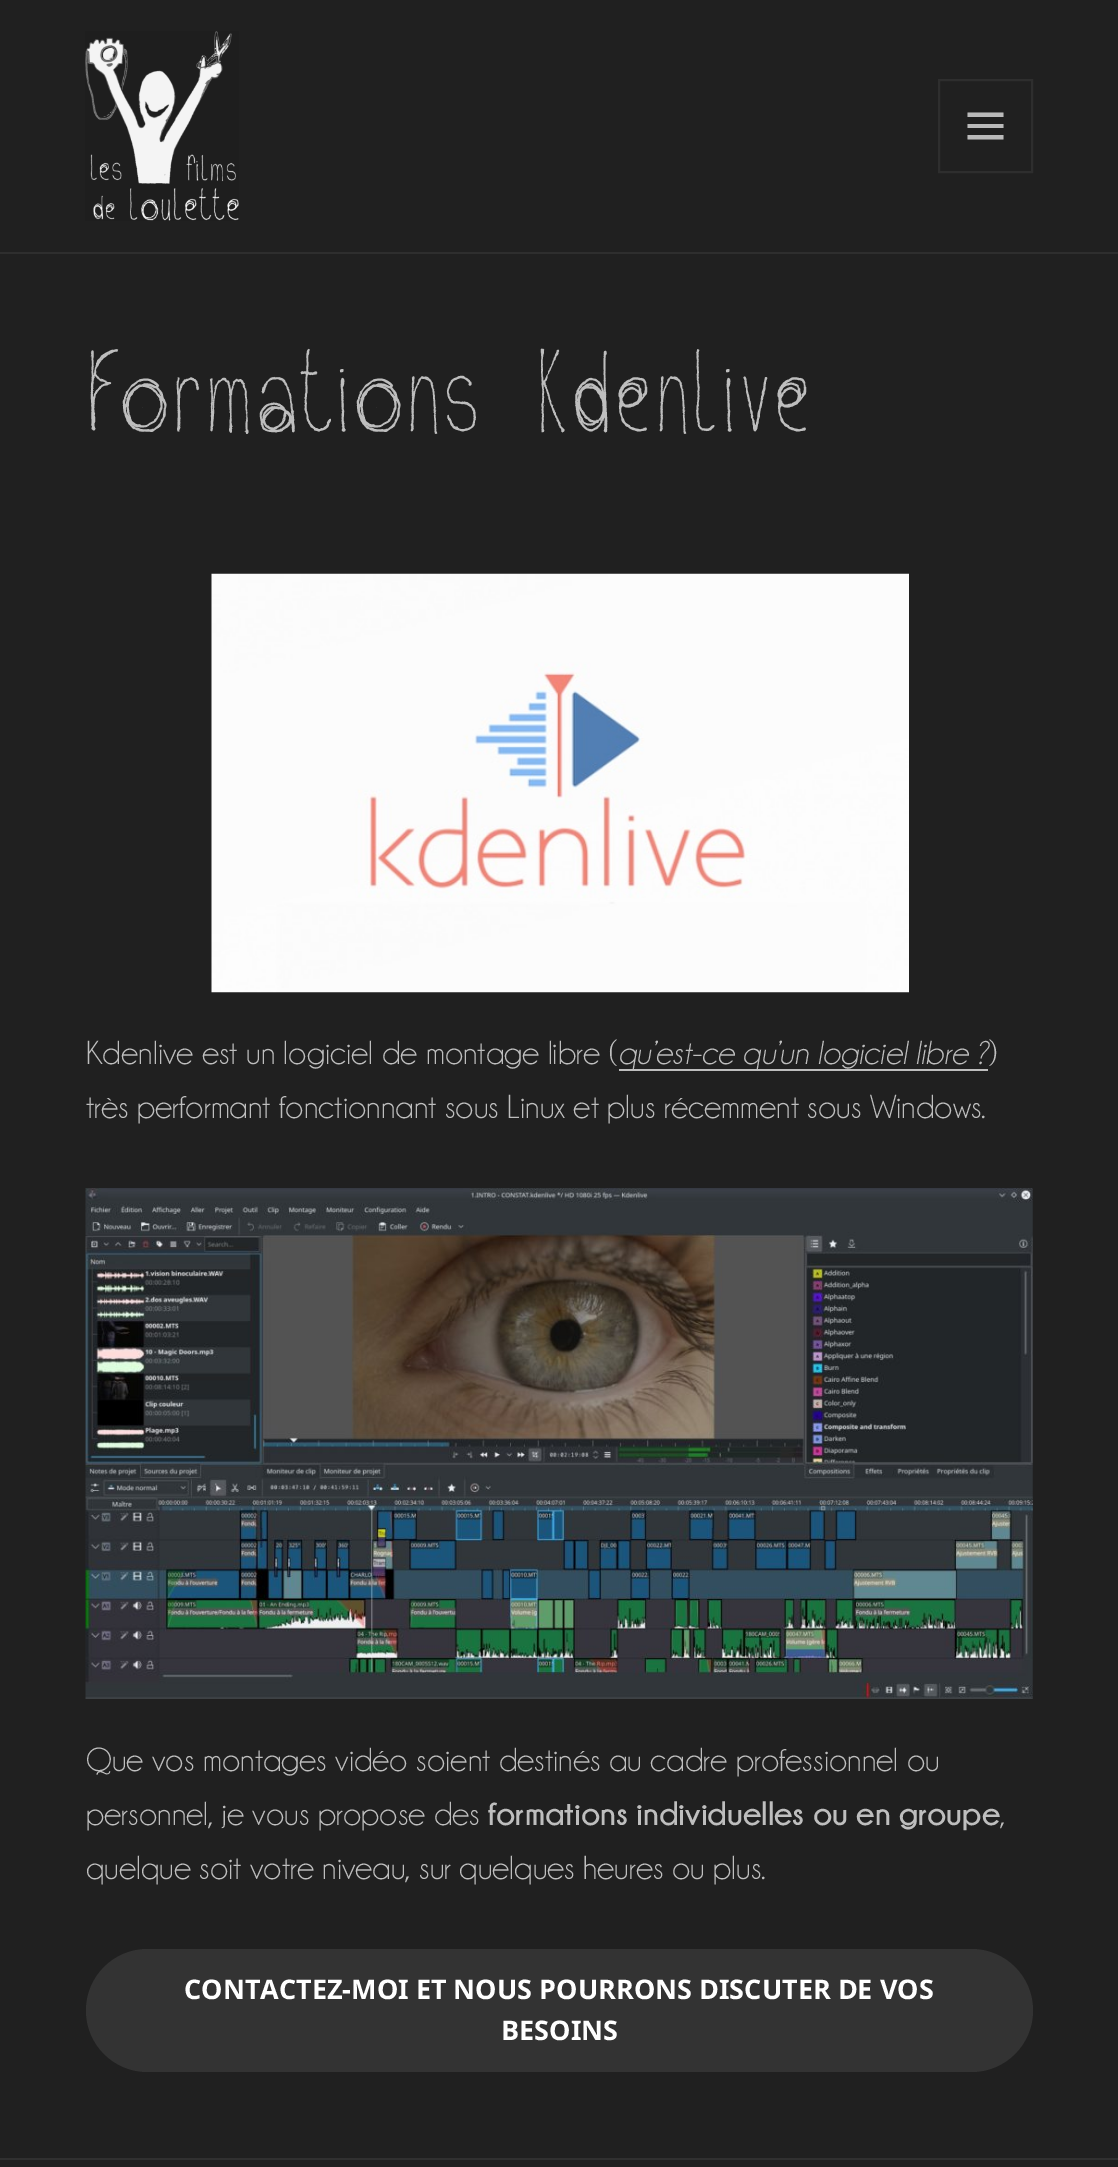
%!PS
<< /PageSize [1118 2167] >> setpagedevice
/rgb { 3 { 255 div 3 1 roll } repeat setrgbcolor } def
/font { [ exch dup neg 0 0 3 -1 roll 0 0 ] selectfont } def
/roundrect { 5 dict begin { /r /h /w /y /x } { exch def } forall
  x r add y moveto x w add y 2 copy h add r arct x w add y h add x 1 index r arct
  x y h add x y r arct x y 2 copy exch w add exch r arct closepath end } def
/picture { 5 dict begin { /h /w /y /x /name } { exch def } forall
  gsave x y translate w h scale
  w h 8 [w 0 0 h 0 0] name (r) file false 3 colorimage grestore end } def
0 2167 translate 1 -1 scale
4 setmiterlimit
32 32 32 rgb
0 0 1118 2167 rectfill
46 46 46 rgb
0 252 1118 2 rectfill
(img/1.rgb) 85 31 154 190 picture
2 setlinewidth
939 80 93 92 rectstroke
186 186 186 rgb
967.5 139.5 moveto 967.5 135 lineto 1003.5 135 lineto 1003.5 139.5 lineto closepath 967.5 112.5 moveto 1003.5 112.5 lineto 1003.5 117 lineto 967.5 117 lineto closepath 967.5 128 moveto 967.5 124 lineto 1003.5 124 lineto 1003.5 128 lineto closepath fill
(img/2.rgb) 211 573 698 420 picture
190 190 190 rgb
619 1069 369 2 rectfill
(img/3.rgb) 85 1188 948 511 picture
51 51 51 rgb
86 1949 947 123 61.5 roundrect fill
48 48 48 rgb
0 2158 1118 2 rectfill
/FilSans-Thin 112.5 font
190 190 190 rgb
86 432 moveto (Formations Kdenlive) show
/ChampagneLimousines-Regular 33.75 font
86 1064 moveto (Kdenlive est un logiciel de montage libre \() show
/ChampagneLimousines-Italic 33.75 font
618 1064 moveto (qu’est-ce qu’un logiciel libre ?) show
/ChampagneLimousines-Regular 33.75 font
[
  [(\)) 988 1064]
  [(très performant fonctionnant sous Linux et plus récemment sous Windows.) 86 1118]
  [(Que vos montages vidéo soient destinés au cadre professionnel ou) 86 1771]
  [(personnel, je vous propose des) 86 1825]
] { aload pop moveto show } forall
/ChampagneLimousines-Bold 33.75 font
488 1825 moveto (formations individuelles ou en groupe) show
/ChampagneLimousines-Regular 33.75 font
1000 1825 moveto (,) show
86 1879 moveto (quelque soit votre niveau, sur quelques heures ou plus.) show
/NotoSans-Bold 27 font
255 255 255 rgb
184 1999 moveto (CONTACTEZ-MOI ET NOUS POURRONS DISCUTER DE VOS) show
501 2040 moveto (BESOINS) show
showpage
